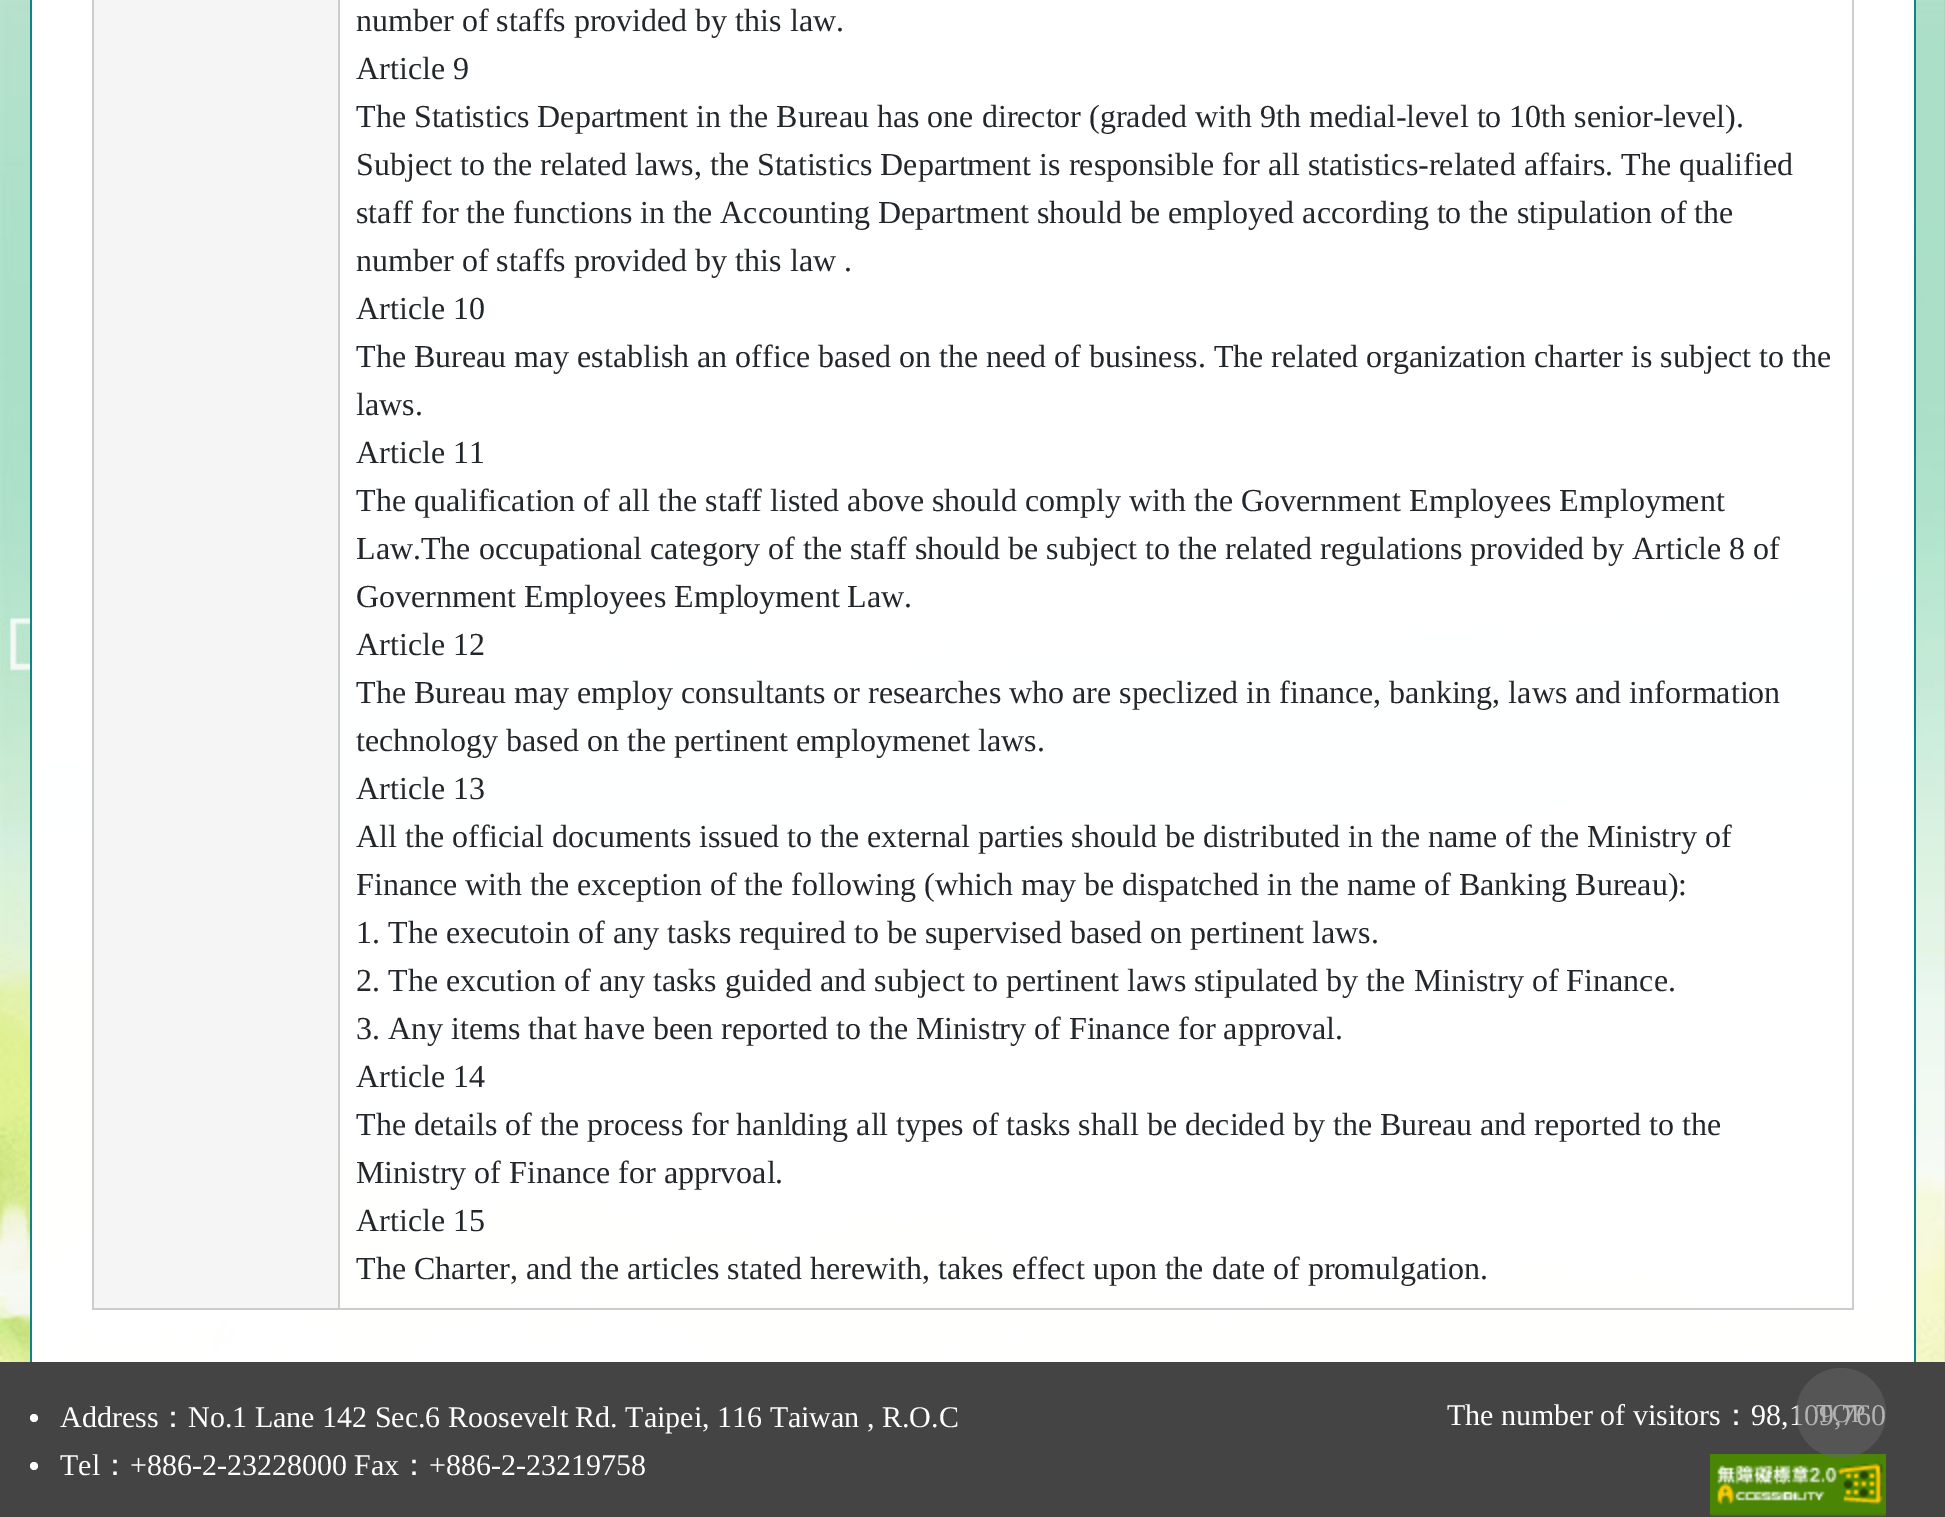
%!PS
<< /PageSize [1945 1517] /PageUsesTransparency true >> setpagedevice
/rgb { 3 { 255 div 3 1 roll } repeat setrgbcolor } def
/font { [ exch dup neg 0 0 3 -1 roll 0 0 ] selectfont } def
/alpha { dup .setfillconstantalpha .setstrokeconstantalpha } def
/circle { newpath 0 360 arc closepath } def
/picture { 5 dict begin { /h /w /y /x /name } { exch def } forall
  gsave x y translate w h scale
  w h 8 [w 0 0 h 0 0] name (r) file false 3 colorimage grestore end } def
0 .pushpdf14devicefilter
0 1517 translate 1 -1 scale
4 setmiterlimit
68 68 68 rgb
0 0 1945 1517 rectfill
(img/1.rgb) 0 0 1945 1362 picture
[
  [1914 0 2 1362 16 131 135]
  [30 0 2 1362 16 131 135]
  [94 0 246 1310 245 245 245]
] { aload pop rgb rectfill } forall
0.99 alpha
[
  [92 1308 1762 2 222 226 230]
  [1852 0 2 1310 204 204 204]
  [338 1308 1516 2 204 204 204]
  [338 0 2 1310 204 204 204]
  [92 1308 248 2 204 204 204]
  [92 0 2 1310 204 204 204]
] { aload pop rgb rectfill } forall
1 alpha
255 255 255 rgb
34 1418 4 circle fill
34 1466 4 circle fill
(img/2.rgb) 1710 1454 176 63 picture
/LiberationSerif-Regular 32 font
35 39 43 rgb
[
  [(number of staffs provided by this law.) 356 31]
  [(Article 9) 356 79]
  [(The Statistics Department in the Bureau has one director \(graded with 9th medial-level to 10th senior-level\).) 356 127]
  [(Subject to the related laws, the Statistics Department is responsible for all statistics-related affairs. The qualified) 356 175]
  [(staff for the functions in the Accounting Department should be employed according to the stipulation of the) 356 223]
  [(number of staffs provided by this law .) 356 271]
  [(Article 10) 356 319]
  [(The Bureau may establish an office based on the need of business. The related organization charter is subject to the) 356 367]
  [(laws.) 356 415]
  [(Article 11) 356 463]
  [(The qualification of all the staff listed above should comply with the Government Employees Employment) 356 511]
  [(Law.The occupational category of the staff should be subject to the related regulations provided by Article 8 of) 356 559]
  [(Government Employees Employment Law.) 356 607]
  [(Article 12) 356 655]
  [(The Bureau may employ consultants or researches who are speclized in finance, banking, laws and information) 356 703]
  [(technology based on the pertinent employmenet laws.) 356 751]
  [(Article 13) 356 799]
  [(All the official documents issued to the external parties should be distributed in the name of the Ministry of) 356 847]
  [(Finance with the exception of the following \(which may be dispatched in the name of Banking Bureau\):) 356 895]
  [(1. The executoin of any tasks required to be supervised based on pertinent laws.) 356 943]
  [(2. The excution of any tasks guided and subject to pertinent laws stipulated by the Ministry of Finance.) 356 991]
  [(3. Any items that have been reported to the Ministry of Finance for approval.) 356 1039]
  [(Article 14) 356 1087]
  [(The details of the process for hanlding all types of tasks shall be decided by the Bureau and reported to the) 356 1135]
  [(Ministry of Finance for apprvoal.) 356 1183]
  [(Article 15) 356 1231]
  [(The Charter, and the articles stated herewith, takes effect upon the date of promulgation.) 356 1279]
] { aload pop moveto show } forall
/LiberationSerif-Regular 30 font
255 255 255 rgb
60 1427 moveto (Address) show
/WenQuanYiZenHei-Medium 30 font
158 1427 moveto (：) show
/LiberationSerif-Regular 30 font
188 1427 moveto (No.1 Lane 142 Sec.6 Roosevelt Rd. Taipei, 116 Taiwan , R.O.C) show
60 1475 moveto (Tel) show
/WenQuanYiZenHei-Medium 30 font
100 1475 moveto (：) show
/LiberationSerif-Regular 30 font
130 1475 moveto (+886-2-23228000 Fax) show
/WenQuanYiZenHei-Medium 30 font
399 1475 moveto (：) show
/LiberationSerif-Regular 30 font
429 1475 moveto (+886-2-23219758) show
1447 1425 moveto (The number of visitors) show
/WenQuanYiZenHei-Medium 30 font
1721 1425 moveto (：) show
/LiberationSerif-Regular 30 font
1751 1425 moveto (98,109,760) show
0.5 alpha
102 102 102 rgb
1841 1413 45 circle fill
/LiberationSerif-Regular 26 font
1 alpha
178 178 178 rgb
1816 1422 moveto (TOP) show
.poppdf14devicefilter showpage
